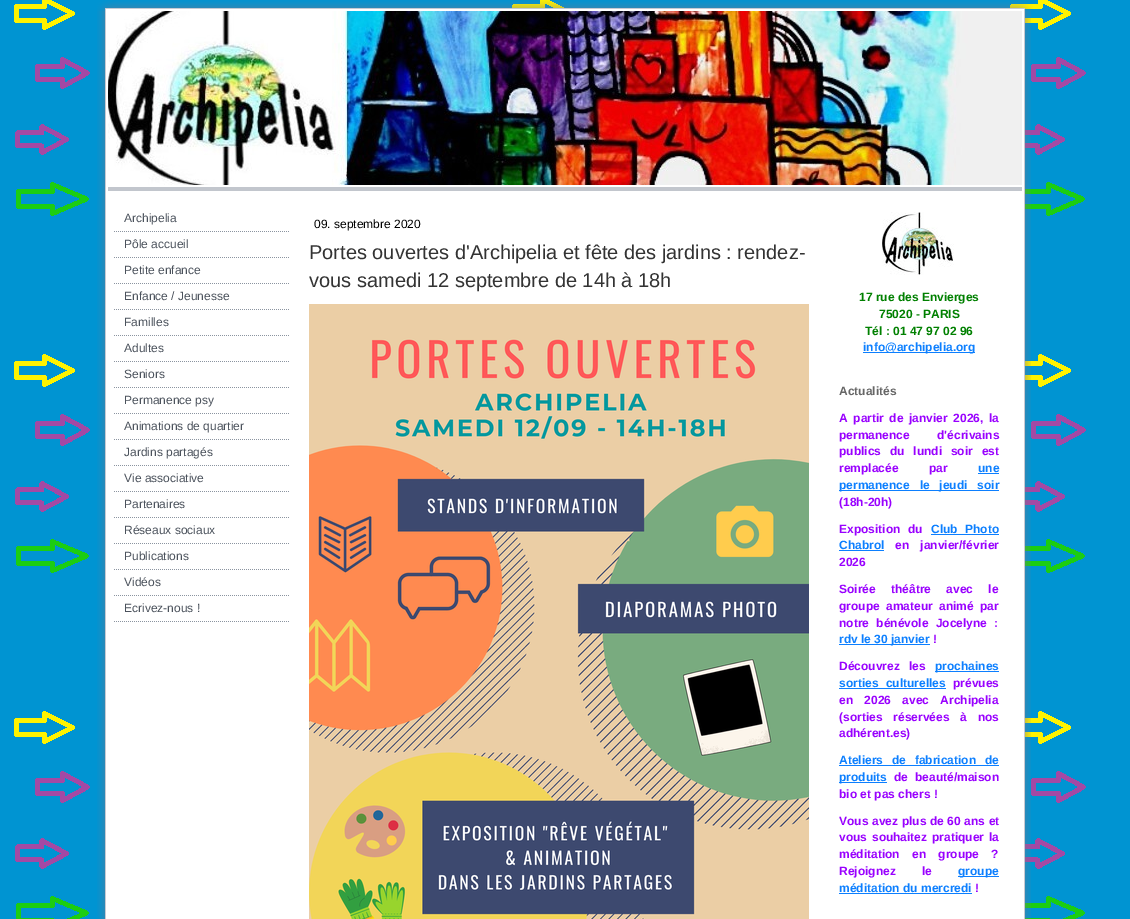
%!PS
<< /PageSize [1130 919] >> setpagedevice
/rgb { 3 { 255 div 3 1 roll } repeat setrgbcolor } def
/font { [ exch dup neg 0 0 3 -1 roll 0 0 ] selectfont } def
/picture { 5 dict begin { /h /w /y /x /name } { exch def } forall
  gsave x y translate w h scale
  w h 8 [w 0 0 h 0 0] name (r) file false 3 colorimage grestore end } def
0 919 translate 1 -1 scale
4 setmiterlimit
255 255 255 rgb
0 0 1130 919 rectfill
(img/1.rgb) 0 0 1130 919 picture
(img/2.rgb) 97 0 936 11 picture
(img/3.rgb) 97 11 934 908 picture
194 198 205 rgb
108 187 914 4 rectfill
(img/4.rgb) 108 11 914 174 picture
(img/5.rgb) 114 231 175 1 picture
(img/5.rgb) 114 257 175 1 picture
(img/5.rgb) 114 283 175 1 picture
(img/5.rgb) 114 309 175 1 picture
(img/5.rgb) 114 335 175 1 picture
(img/5.rgb) 114 361 175 1 picture
(img/5.rgb) 114 387 175 1 picture
(img/5.rgb) 114 413 175 1 picture
(img/5.rgb) 114 439 175 1 picture
(img/5.rgb) 114 465 175 1 picture
(img/5.rgb) 114 491 175 1 picture
(img/5.rgb) 114 517 175 1 picture
(img/5.rgb) 114 543 175 1 picture
(img/5.rgb) 114 569 175 1 picture
(img/5.rgb) 114 595 175 1 picture
(img/5.rgb) 114 621 175 1 picture
(img/6.rgb) 309 304 500 615 picture
(img/7.rgb) 882 212 72 63 picture
[
  [863 352 112 1 12 127 255]
  [978 473 21 1 12 127 255]
  [839 490 160 1 12 127 255]
  [931 534 68 1 12 127 255]
  [839 550 45 1 12 127 255]
  [839 644 91 1 12 127 255]
  [935 671 64 1 12 127 255]
  [839 688 107 1 12 127 255]
  [839 765 160 1 12 127 255]
  [839 782 48 1 12 127 255]
  [958 876 41 1 12 127 255]
  [839 893 133 1 12 127 255]
] { aload pop rgb rectfill } forall
/LiberationSans-Regular 12 font
75 82 92 rgb
[
  [(Archipelia) 124 222]
  [(Pôle accueil) 124 248]
  [(Petite enfance) 124 274]
  [(Enfance / Jeunesse) 124 300]
  [(Familles) 124 326]
  [(Adultes) 124 352]
  [(Seniors) 124 378]
  [(Permanence psy) 124 404]
  [(Animations de quartier) 124 430]
  [(Jardins partagés) 124 456]
  [(Vie associative) 124 482]
  [(Partenaires) 124 508]
  [(Réseaux sociaux) 124 534]
  [(Publications) 124 560]
  [(Vidéos) 124 586]
  [(Ecrivez-nous !) 124 612]
] { aload pop moveto show } forall
0 0 0 rgb
314 228 moveto (09. septembre 2020) show
/LiberationSans-Regular 20 font
51 51 51 rgb
309 259 moveto (Portes ouvertes d'Archipelia et fête des jardins : rendez-) show
309 287 moveto (vous samedi 12 septembre de 14h à 18h) show
/LiberationSans-Bold 12 font
0 128 0 rgb
[
  [(17 rue des Envierges) 859 301]
  [(75020 - PARIS) 879 318]
  [(Tél : 01 47 97 02 96) 865 335]
] { aload pop moveto show } forall
12 127 255 rgb
863 351 moveto (info@archipelia.org) show
102 102 102 rgb
839 395 moveto (Actualités) show
153 0 255 rgb
839 422 moveto 2.25 0 32 (A partir de janvier 2026, la) widthshow
839 439 moveto 24 0 32 (permanence d'écrivains) widthshow
839 455 moveto 5.5 0 32 (publics du lundi soir est) widthshow
839 472 moveto 27 0 32 (remplacée par) widthshow
12 127 255 rgb
978 472 moveto (une) show
839 489 moveto 6.5 0 32 (permanence le jeudi soir) widthshow
153 0 255 rgb
839 506 moveto (\(18h-20h\)) show
839 533 moveto 4 0 32 (Exposition du) widthshow
12 127 255 rgb
931 533 moveto 4 0 32 (Club Photo) widthshow
839 549 moveto (Chabrol) show
153 0 255 rgb
895 549 moveto 8 0 32 (en janvier/février) widthshow
839 566 moveto (2026) show
839 593 moveto 12 0 32 (Soirée théâtre avec le) widthshow
839 610 moveto 3 0 32 (groupe amateur animé par) widthshow
839 627 moveto 4 0 32 (notre bénévole Jocelyne :) widthshow
12 127 255 rgb
839 643 moveto (rdv le 30 janvier) show
153 0 255 rgb
933 643 moveto (!) show
839 670 moveto 6 0 32 (Découvrez les) widthshow
12 127 255 rgb
935 670 moveto (prochaines) show
839 687 moveto 4 0 32 (sorties culturelles) widthshow
153 0 255 rgb
953 687 moveto (prévues) show
839 704 moveto 8 0 32 (en 2026 avec Archipelia) widthshow
839 721 moveto 7.5 0 32 (\(sorties réservées à nos) widthshow
839 737 moveto (adhérent.es\)) show
12 127 255 rgb
839 764 moveto 5.5 0 32 (Ateliers de fabrication de) widthshow
839 781 moveto (produits) show
153 0 255 rgb
[
  [(de) 894 781]
  [(beauté/maison) 915 781]
  [(bio et pas chers !) 839 798]
] { aload pop moveto show } forall
839 825 moveto 0.25 0 32 (Vous avez plus de 60 ans et) widthshow
839 841 moveto 1.5 0 32 (vous souhaitez pratiquer la) widthshow
839 858 moveto 9 0 32 (méditation en groupe ?) widthshow
839 875 moveto 23 0 32 (Rejoignez le) widthshow
12 127 255 rgb
958 875 moveto (groupe) show
839 892 moveto (méditation du mercredi) show
153 0 255 rgb
975 892 moveto (!) show
showpage
